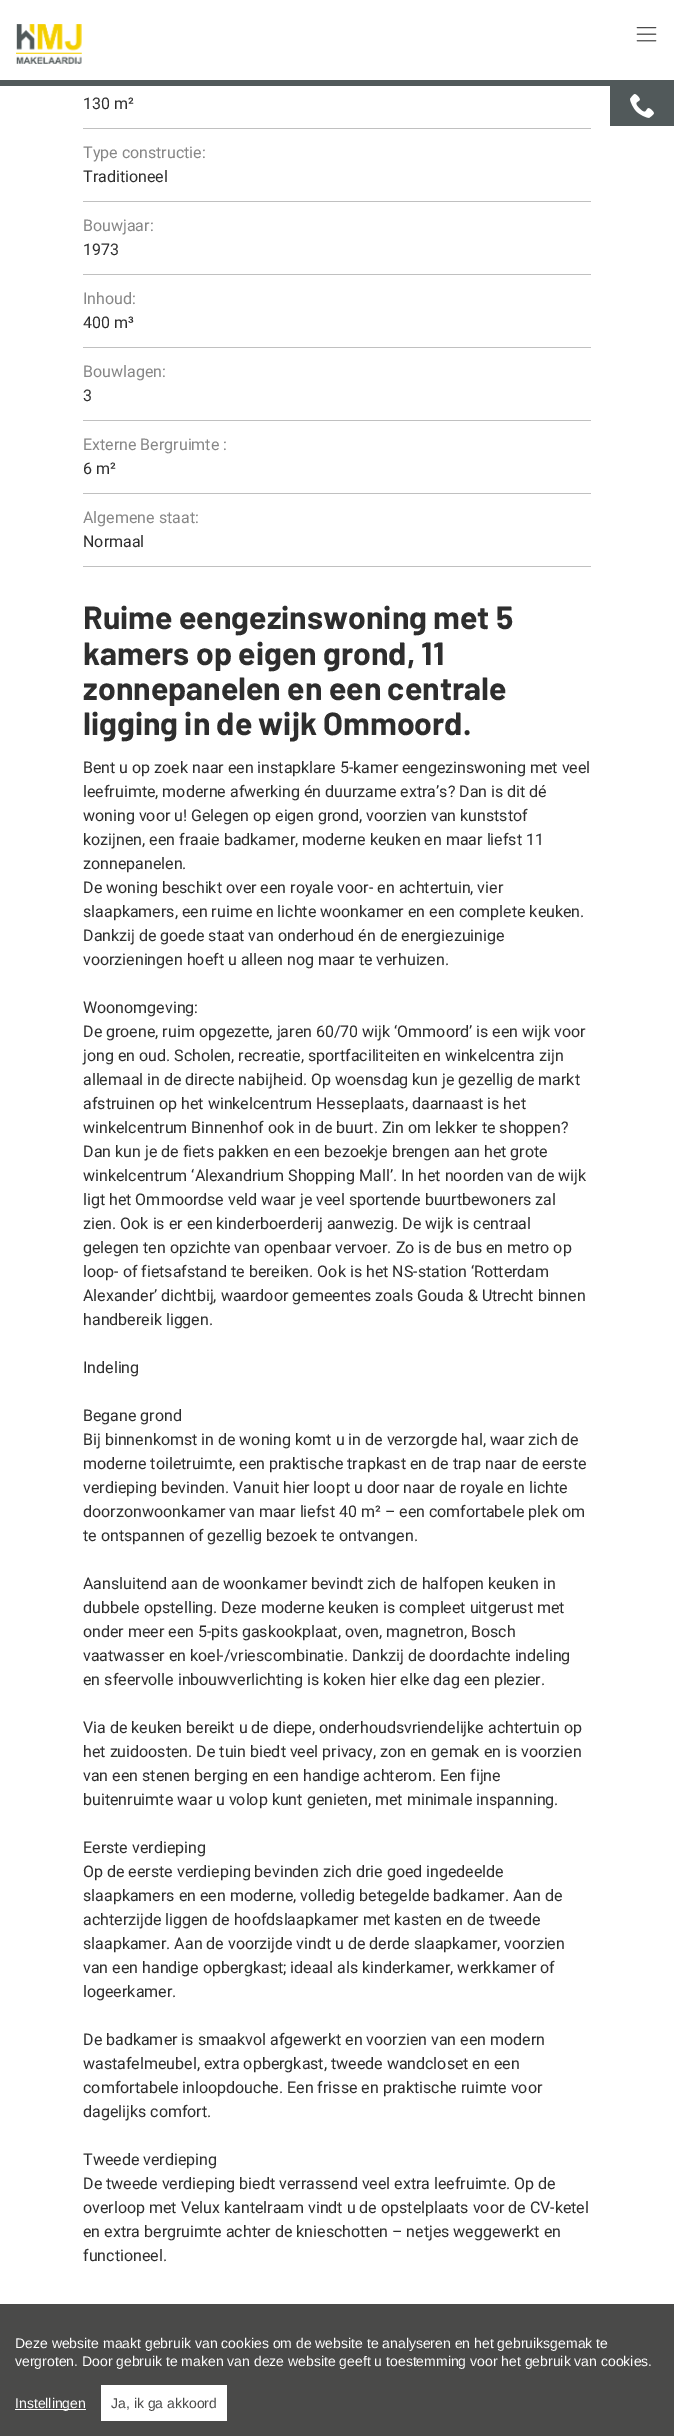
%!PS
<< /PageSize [674 2436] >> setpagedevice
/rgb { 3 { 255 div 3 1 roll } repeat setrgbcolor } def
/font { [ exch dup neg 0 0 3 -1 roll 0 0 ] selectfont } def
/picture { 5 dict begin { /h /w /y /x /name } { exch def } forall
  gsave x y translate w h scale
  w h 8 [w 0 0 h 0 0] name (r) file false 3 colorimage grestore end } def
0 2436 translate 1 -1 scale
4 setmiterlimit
255 255 255 rgb
0 0 674 2436 rectfill
(img/1.rgb) 16 24 66 40 picture
(img/2.rgb) 636 27 21 15 picture
81 89 90 rgb
0 80 674 6 rectfill
610 86 64 40 rectfill
(img/3.rgb) 630 94 24 24 picture
[
  [83 128 508 1 192 192 192]
  [83 201 508 1 192 192 192]
  [83 274 508 1 192 192 192]
  [83 347 508 1 192 192 192]
  [83 420 508 1 192 192 192]
  [83 493 508 1 192 192 192]
  [83 566 508 1 192 192 192]
  [0 2304 674 132 74 74 73]
  [15 2409 71 1 255 255 255]
  [101 2385 126 36 255 255 255]
] { aload pop rgb rectfill } forall
/Roboto-Regular 16 font
46 46 46 rgb
83 109 moveto (130 m²) show
135 135 135 rgb
83 158 moveto (Type constructie:) show
46 46 46 rgb
83 182 moveto (Traditioneel) show
135 135 135 rgb
83 231 moveto (Bouwjaar:) show
46 46 46 rgb
83 255 moveto (1973) show
135 135 135 rgb
83 304 moveto (Inhoud:) show
46 46 46 rgb
83 328 moveto (400 m³) show
135 135 135 rgb
83 377 moveto (Bouwlagen:) show
46 46 46 rgb
83 401 moveto (3) show
135 135 135 rgb
83 450 moveto (Externe Bergruimte :) show
46 46 46 rgb
83 474 moveto (6 m²) show
135 135 135 rgb
83 523 moveto (Algemene staat:) show
46 46 46 rgb
83 547 moveto (Normaal) show
/Barlow-Bold 32 font
[
  [(Ruime eengezinswoning met 5) 83 629]
  [(kamers op eigen grond, 11) 83 665]
  [(zonnepanelen en een centrale) 83 700]
  [(ligging in de wijk Ommoord.) 83 735]
] { aload pop moveto show } forall
/Roboto-Regular 16 font
[
  [(Bent u op zoek naar een instapklare 5-kamer eengezinswoning met veel) 83 773]
  [(leefruimte, moderne afwerking én duurzame extra’s? Dan is dit dé) 83 797]
  [(woning voor u! Gelegen op eigen grond, voorzien van kunststof) 83 821]
  [(kozijnen, een fraaie badkamer, moderne keuken en maar liefst 11) 83 845]
  [(zonnepanelen.) 83 869]
  [(De woning beschikt over een royale voor- en achtertuin, vier) 83 893]
  [(slaapkamers, een ruime en lichte woonkamer en een complete keuken.) 83 917]
  [(Dankzij de goede staat van onderhoud én de energiezuinige) 83 941]
  [(voorzieningen hoeft u alleen nog maar te verhuizen.) 83 965]
  [(Woonomgeving:) 83 1013]
  [(De groene, ruim opgezette, jaren 60/70 wijk ‘Ommoord’ is een wijk voor) 83 1037]
  [(jong en oud. Scholen, recreatie, sportfaciliteiten en winkelcentra zijn) 83 1061]
  [(allemaal in de directe nabijheid. Op woensdag kun je gezellig de markt) 83 1085]
  [(afstruinen op het winkelcentrum Hesseplaats, daarnaast is het) 83 1109]
  [(winkelcentrum Binnenhof ook in de buurt. Zin om lekker te shoppen?) 83 1133]
  [(Dan kun je de fiets pakken en een bezoekje brengen aan het grote) 83 1157]
  [(winkelcentrum ‘Alexandrium Shopping Mall’. In het noorden van de wijk) 83 1181]
  [(ligt het Ommoordse veld waar je veel sportende buurtbewoners zal) 83 1205]
  [(zien. Ook is er een kinderboerderij aanwezig. De wijk is centraal) 83 1229]
  [(gelegen ten opzichte van openbaar vervoer. Zo is de bus en metro op) 83 1253]
  [(loop- of fietsafstand te bereiken. Ook is het NS-station ‘Rotterdam) 83 1277]
  [(Alexander’ dichtbij, waardoor gemeentes zoals Gouda & Utrecht binnen) 83 1301]
  [(handbereik liggen.) 83 1325]
  [(Indeling) 83 1373]
  [(Begane grond) 83 1421]
  [(Bij binnenkomst in de woning komt u in de verzorgde hal, waar zich de) 83 1445]
  [(moderne toiletruimte, een praktische trapkast en de trap naar de eerste) 83 1469]
  [(verdieping bevinden. Vanuit hier loopt u door naar de royale en lichte) 83 1493]
  [(doorzonwoonkamer van maar liefst 40 m² – een comfortabele plek om) 83 1517]
  [(te ontspannen of gezellig bezoek te ontvangen.) 83 1541]
  [(Aansluitend aan de woonkamer bevindt zich de halfopen keuken in) 83 1589]
  [(dubbele opstelling. Deze moderne keuken is compleet uitgerust met) 83 1613]
  [(onder meer een 5-pits gaskookplaat, oven, magnetron, Bosch) 83 1637]
  [(vaatwasser en koel-/vriescombinatie. Dankzij de doordachte indeling) 83 1661]
  [(en sfeervolle inbouwverlichting is koken hier elke dag een plezier.) 83 1685]
  [(Via de keuken bereikt u de diepe, onderhoudsvriendelijke achtertuin op) 83 1733]
  [(het zuidoosten. De tuin biedt veel privacy, zon en gemak en is voorzien) 83 1757]
  [(van een stenen berging en een handige achterom. Een fijne) 83 1781]
  [(buitenruimte waar u volop kunt genieten, met minimale inspanning.) 83 1805]
  [(Eerste verdieping) 83 1853]
  [(Op de eerste verdieping bevinden zich drie goed ingedeelde) 83 1877]
  [(slaapkamers en een moderne, volledig betegelde badkamer. Aan de) 83 1901]
  [(achterzijde liggen de hoofdslaapkamer met kasten en de tweede) 83 1925]
  [(slaapkamer. Aan de voorzijde vindt u de derde slaapkamer, voorzien) 83 1949]
  [(van een handige opbergkast; ideaal als kinderkamer, werkkamer of) 83 1973]
  [(logeerkamer.) 83 1997]
  [(De badkamer is smaakvol afgewerkt en voorzien van een modern) 83 2045]
  [(wastafelmeubel, extra opbergkast, tweede wandcloset en een) 83 2069]
  [(comfortabele inloopdouche. Een frisse en praktische ruimte voor) 83 2093]
  [(dagelijks comfort.) 83 2117]
  [(Tweede verdieping) 83 2165]
  [(De tweede verdieping biedt verrassend veel extra leefruimte. Op de) 83 2189]
  [(overloop met Velux kantelraam vindt u de opstelplaats voor de CV-ketel) 83 2213]
  [(en extra bergruimte achter de knieschotten – netjes weggewerkt en) 83 2237]
  [(functioneel.) 83 2261]
] { aload pop moveto show } forall
/LiberationSans-Regular 14 font
255 255 255 rgb
[
  [(Deze website maakt gebruik van cookies om de website te analyseren en het gebruiksgemak te) 15 2348]
  [(vergroten. Door gebruik te maken van deze website geeft u toestemming voor het gebruik van cookies.) 15 2366]
  [(Instellingen) 15 2408]
] { aload pop moveto show } forall
74 74 73 rgb
111 2408 moveto (Ja, ik ga akkoord) show
showpage
